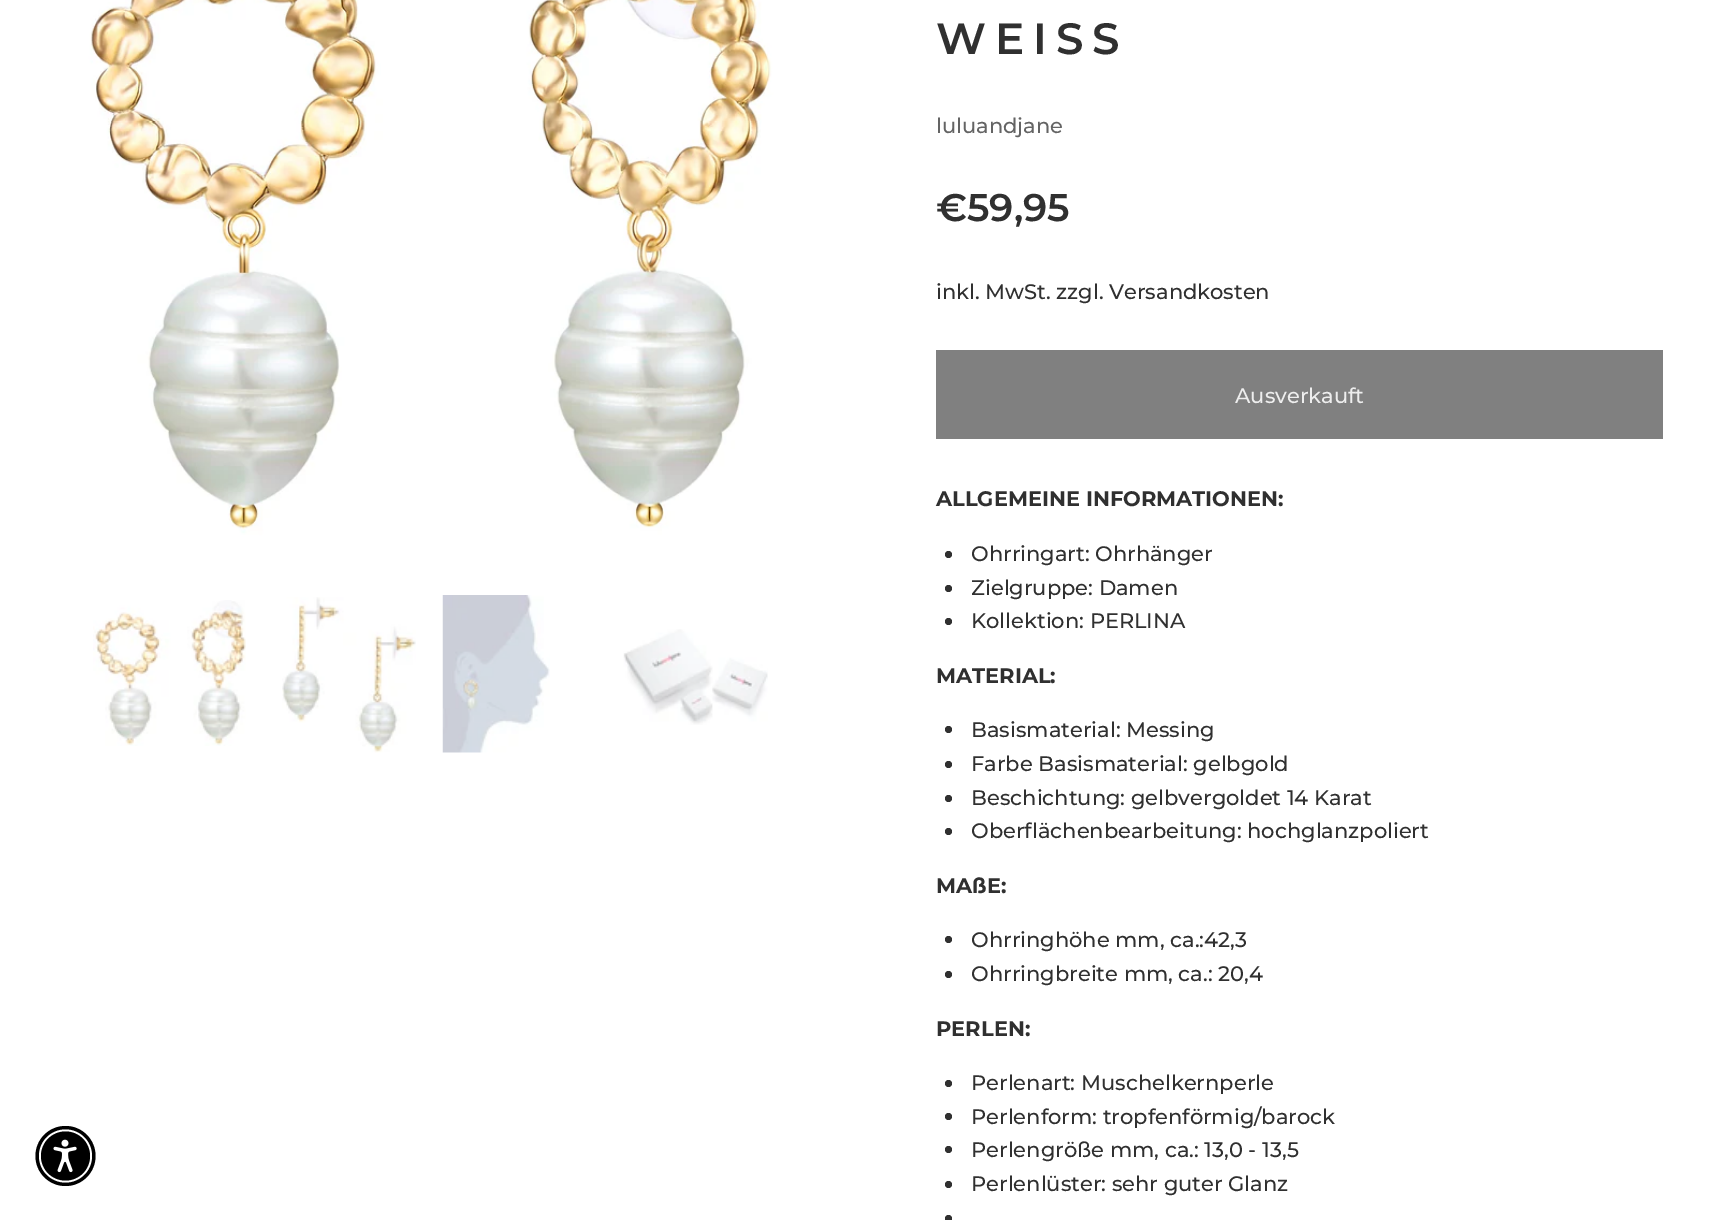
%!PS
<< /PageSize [1731 1220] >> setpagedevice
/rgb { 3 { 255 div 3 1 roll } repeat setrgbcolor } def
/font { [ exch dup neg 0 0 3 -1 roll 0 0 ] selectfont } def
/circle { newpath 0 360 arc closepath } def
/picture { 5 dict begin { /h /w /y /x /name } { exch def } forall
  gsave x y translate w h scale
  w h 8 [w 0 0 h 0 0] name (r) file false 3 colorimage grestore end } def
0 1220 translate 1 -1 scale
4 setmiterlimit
255 255 255 rgb
0 0 1731 1220 rectfill
0 0 0 rgb
65.5 1156 30 circle fill
255 255 255 rgb
65.5 1156 26.5 circle fill
0 0 0 rgb
65.5 1156 24.5 circle fill
(img/1.rgb) 53 1139 24 34 picture
(img/2.rgb) 74 0 719 567 picture
(img/3.rgb) 93 600 153 146 picture
(img/4.rgb) 282 597 134 156 picture
(img/5.rgb) 442 595 108 158 picture
(img/6.rgb) 623 629 145 96 picture
128 128 128 rgb
936 350 727 89 rectfill
48 48 48 rgb
948.5 554.5 3.5 circle fill
948.5 588.5 3.5 circle fill
948.5 621.5 3.5 circle fill
948.5 729.5 3.5 circle fill
948.5 764.5 3.5 circle fill
948.5 798.5 3.5 circle fill
948.5 831.5 3.5 circle fill
948.5 939.5 3.5 circle fill
948.5 974.5 3.5 circle fill
948.5 1083.5 3.5 circle fill
948.5 1116.5 3.5 circle fill
948.5 1149.5 3.5 circle fill
948.5 1184.5 3.5 circle fill
948.5 1218.5 3.5 circle fill
/Montserrat-SemiBold 43.75 font
936 54 moveto 8.75 0 (WEISS) ashow
/Montserrat-Medium 21 font
100 100 100 rgb
936 133 moveto (luluandjane) show
/Montserrat-SemiBold 38.5 font
48 48 48 rgb
936 221 moveto (€59,95) show
/Montserrat-Medium 21 font
936 299 moveto (inkl. MwSt. zzgl. Versandkosten) show
238 238 238 rgb
1235 403 moveto (Ausverkauft) show
/Montserrat-Bold 21 font
48 48 48 rgb
936 506 moveto (ALLGEMEINE INFORMATIONEN:) show
/Montserrat-Medium 21 font
[
  [(Ohrringart: Ohrhänger) 971 561]
  [(Zielgruppe: Damen) 971 595]
  [(Kollektion: PERLINA) 971 628]
] { aload pop moveto show } forall
/Montserrat-Bold 21 font
936 683 moveto (MATERIAL:) show
/Montserrat-Medium 21 font
[
  [(Basismaterial: Messing) 971 737]
  [(Farbe Basismaterial: gelbgold) 971 771]
  [(Beschichtung: gelbvergoldet 14 Karat) 971 805]
  [(Oberflächenbearbeitung: hochglanzpoliert) 971 838]
] { aload pop moveto show } forall
/Montserrat-Bold 21 font
936 893 moveto (MAßE:) show
/Montserrat-Medium 21 font
971 947 moveto (Ohrringhöhe mm, ca.:42,3) show
971 981 moveto (Ohrringbreite mm, ca.: 20,4) show
/Montserrat-Bold 21 font
936 1036 moveto (PERLEN:) show
/Montserrat-Medium 21 font
[
  [(Perlenart: Muschelkernperle) 971 1090]
  [(Perlenform: tropfenförmig/barock) 971 1124]
  [(Perlengröße mm, ca.: 13,0 - 13,5) 971 1157]
  [(Perlenlüster: sehr guter Glanz) 971 1191]
] { aload pop moveto show } forall
showpage
